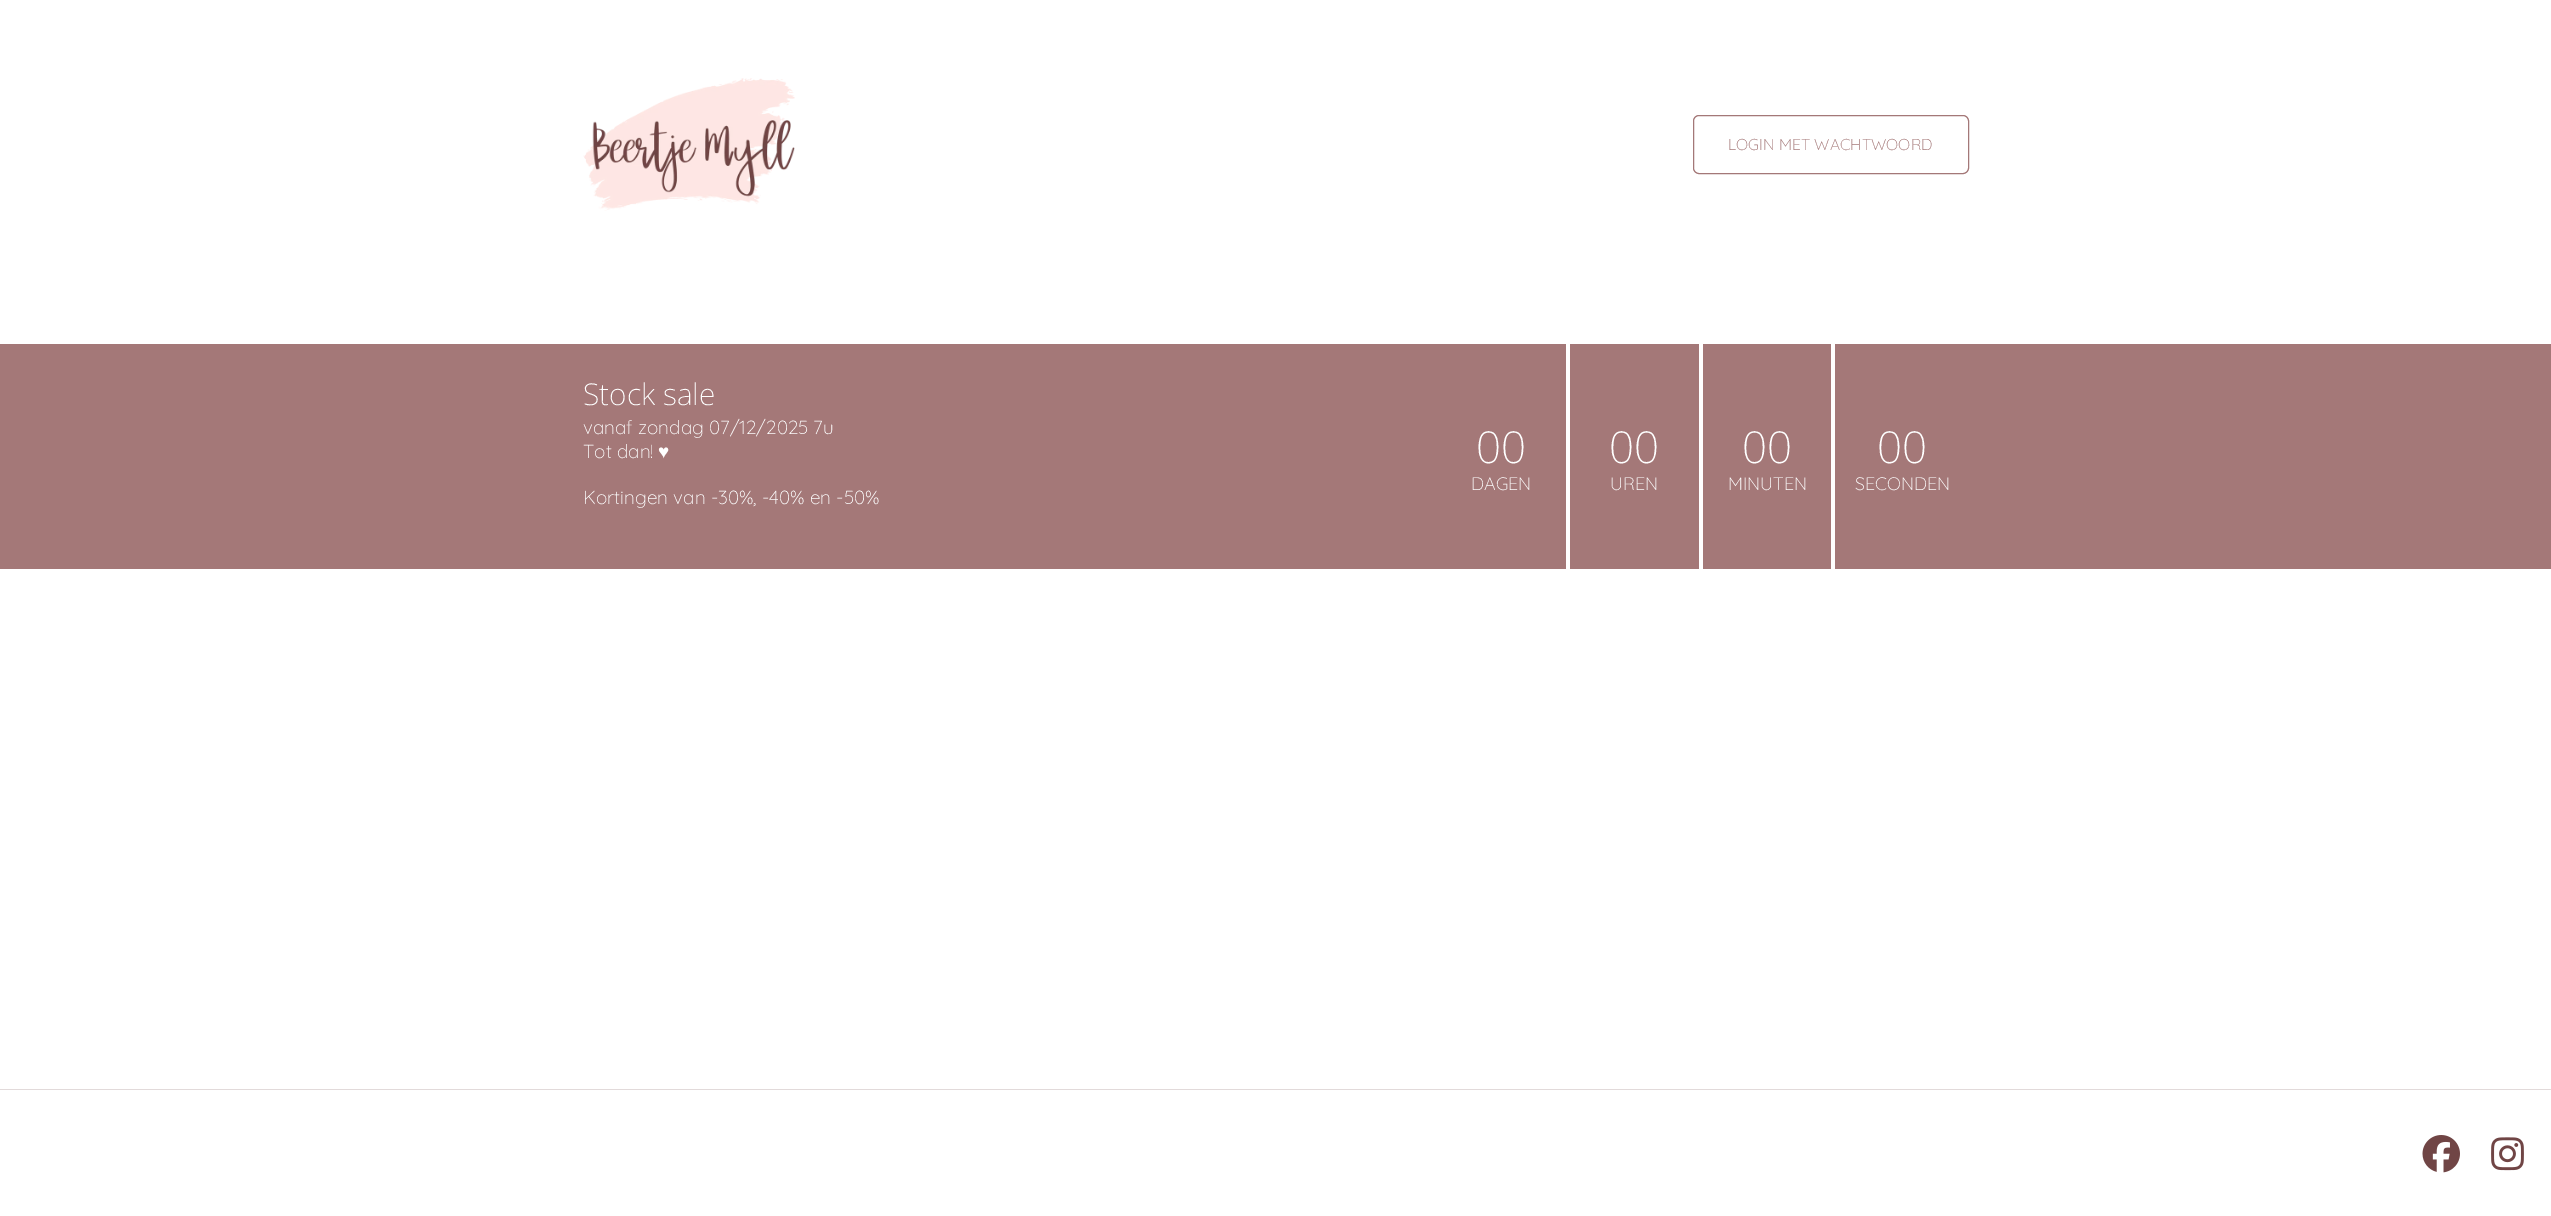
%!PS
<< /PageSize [2551 1216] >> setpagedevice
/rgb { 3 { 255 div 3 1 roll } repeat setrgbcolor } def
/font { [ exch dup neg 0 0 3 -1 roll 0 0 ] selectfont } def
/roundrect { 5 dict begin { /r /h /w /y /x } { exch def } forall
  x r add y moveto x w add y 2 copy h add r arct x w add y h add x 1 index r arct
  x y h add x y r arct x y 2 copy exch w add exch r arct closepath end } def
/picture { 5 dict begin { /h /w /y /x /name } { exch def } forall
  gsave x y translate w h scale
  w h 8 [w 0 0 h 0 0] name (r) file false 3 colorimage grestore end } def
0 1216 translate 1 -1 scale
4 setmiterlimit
255 255 255 rgb
0 0 2551 1216 rectfill
(img/1.rgb) 583 78 212 133 picture
164 120 120 rgb
1693.5 115.5 275 58 5.5 roundrect stroke
[
  [0 344 2551 225 164 120 120]
  [1566 344 4 225 255 255 255]
  [1699 344 4 225 255 255 255]
  [1831 344 4 225 255 255 255]
  [0 1089 2551 1 226 218 218]
] { aload pop rgb rectfill } forall
(img/2.rgb) 2422 1135 38 38 picture
(img/3.rgb) 2491 1137 33 34 picture
/Quicksand-Light 15.75 font
164 120 120 rgb
1728 150 moveto (LOGIN MET WACHTWOORD) show
/NotoSans-ExtraLight 30 font
255 255 255 rgb
583 405 moveto (Stock sale) show
/Quicksand-Light 19 font
583 434 moveto (vanaf zondag 07/12/2025 7u) show
583 458 moveto (Tot dan!) show
/LiberationSans-Regular 19 font
658 458 moveto (♥) show
/Quicksand-Light 19 font
583 504 moveto (Kortingen van -30%, -40% en -50%) show
/NotoSans-ExtraLight 44 font
1476 463 moveto (00) show
/Quicksand-Light 18 font
1471 490 moveto (DAGEN) show
/NotoSans-ExtraLight 44 font
1609 463 moveto (00) show
/Quicksand-Light 18 font
1610 490 moveto (UREN) show
/NotoSans-ExtraLight 44 font
1742 463 moveto (00) show
/Quicksand-Light 18 font
1728 490 moveto (MINUTEN) show
/NotoSans-ExtraLight 44 font
1877 463 moveto (00) show
/Quicksand-Light 18 font
1855 490 moveto (SECONDEN) show
showpage
